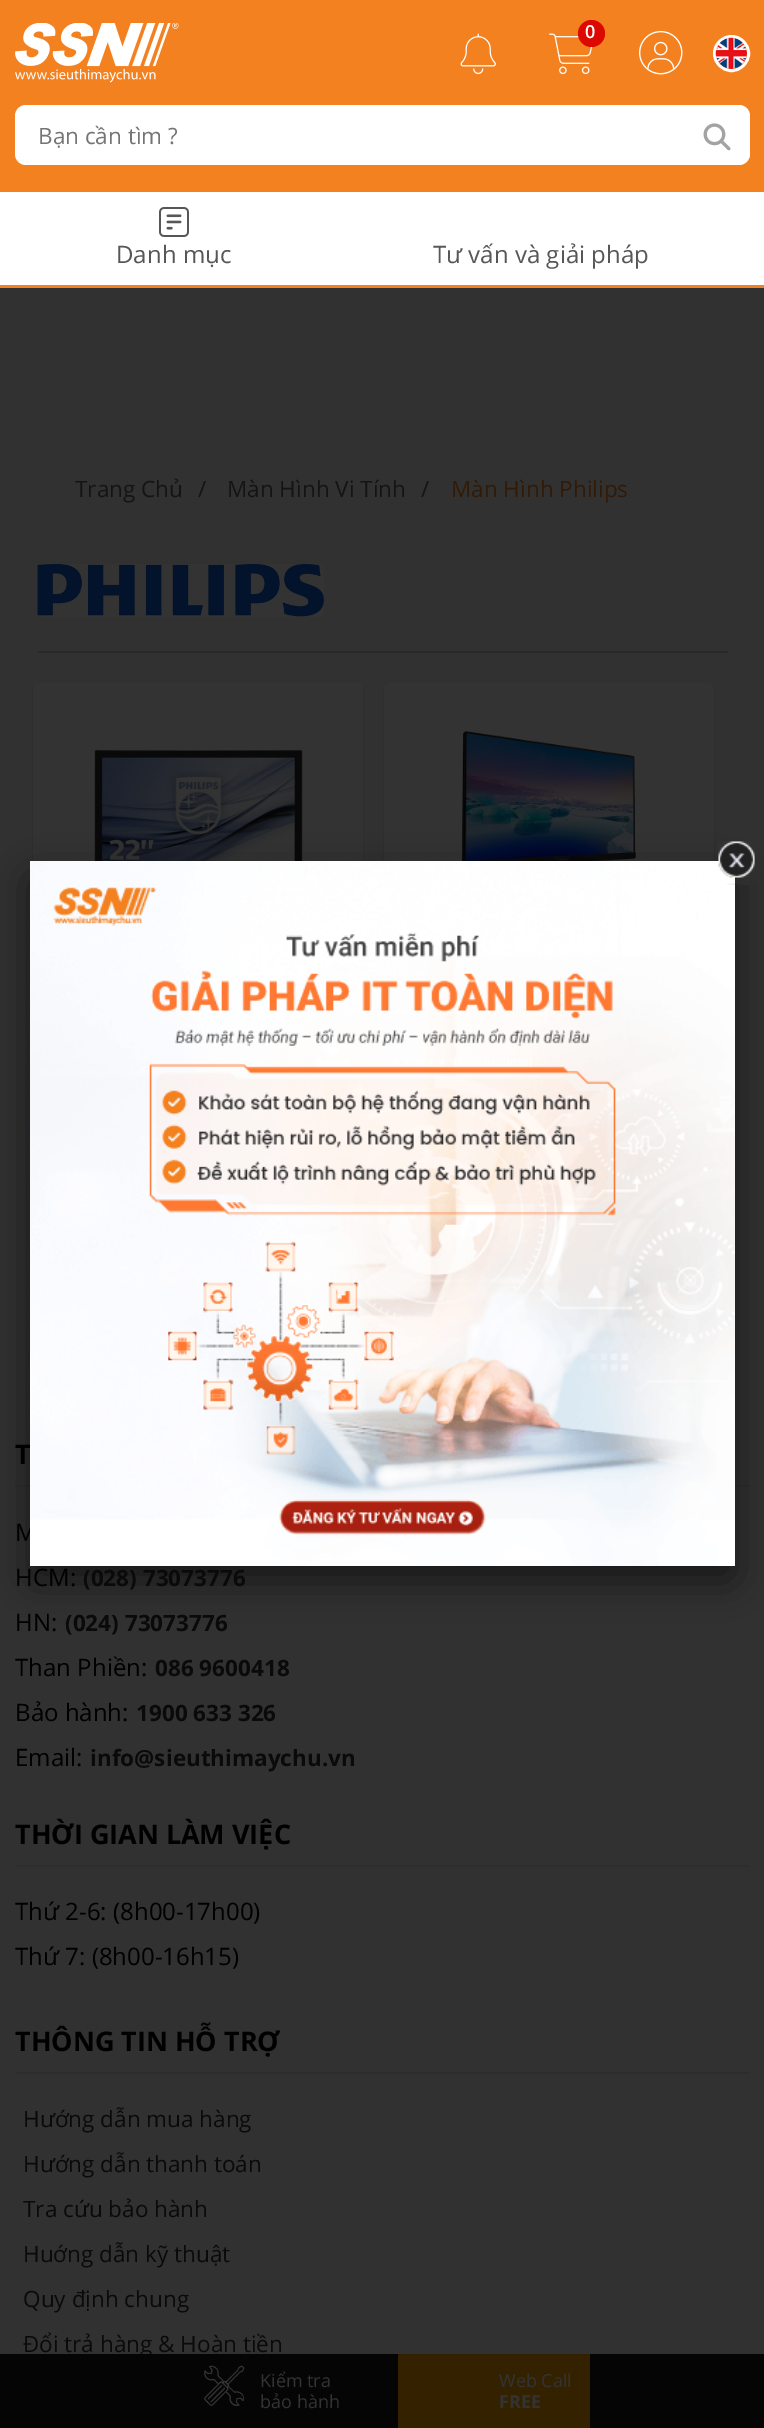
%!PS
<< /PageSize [764 2428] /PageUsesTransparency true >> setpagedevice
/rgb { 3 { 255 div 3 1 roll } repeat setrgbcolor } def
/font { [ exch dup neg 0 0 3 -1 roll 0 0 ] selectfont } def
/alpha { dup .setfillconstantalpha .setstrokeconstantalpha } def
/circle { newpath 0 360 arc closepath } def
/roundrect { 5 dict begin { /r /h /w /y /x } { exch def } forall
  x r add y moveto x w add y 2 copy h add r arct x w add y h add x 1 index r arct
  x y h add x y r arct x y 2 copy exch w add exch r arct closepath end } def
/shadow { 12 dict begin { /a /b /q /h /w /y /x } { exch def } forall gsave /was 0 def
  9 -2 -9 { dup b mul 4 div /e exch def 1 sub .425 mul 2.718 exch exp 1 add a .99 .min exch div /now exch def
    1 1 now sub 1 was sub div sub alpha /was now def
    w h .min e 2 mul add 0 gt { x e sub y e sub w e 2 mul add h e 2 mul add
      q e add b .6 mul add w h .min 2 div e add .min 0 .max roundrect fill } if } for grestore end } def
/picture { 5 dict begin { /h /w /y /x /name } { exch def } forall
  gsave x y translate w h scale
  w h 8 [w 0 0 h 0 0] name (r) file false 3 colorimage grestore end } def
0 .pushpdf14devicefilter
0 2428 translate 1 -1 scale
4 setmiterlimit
49 49 50 rgb
0 0 764 2428 rectfill
244 129 32 rgb
0 0 764 288 rectfill
(img/1.rgb) 15 23 164 60 picture
(img/2.rgb) 460 33 36 42 picture
(img/3.rgb) 549 33 44 42 picture
219 9 0 rgb
591.5 33.5 13.5 circle fill
(img/4.rgb) 639 30 44 45 picture
255 255 255 rgb
3 setlinewidth
731.5 53.5 17 circle stroke
(img/5.rgb) 715 37 32 32 picture
15 105 735 60 11 roundrect fill
(img/6.rgb) 703 123 28 28 picture
0 192 764 93 rectfill
(img/7.rgb) 159 207 30 30 picture
41 41 41 rgb
38 651 690 2 rectfill
(img/8.rgb) 37 564 287 53 picture
0 0 0 rgb
33 684 330 560 6 1 0.2 shadow
51 51 51 rgb
33 683 330 559 6 roundrect fill
(img/9.rgb) 94 749 210 112 picture
0 0 0 rgb
384 684 330 560 6 1 0.2 shadow
51 51 51 rgb
384 683 330 559 6 roundrect fill
(img/10.rgb) 461 731 175 130 picture
45 45 45 rgb
15 1485 735 2 rectfill
0 0 0 rgb
30 876 705 705 6 19 0.5 shadow
45 45 45 rgb
15 1865 735 2 rectfill
15 2072 735 2 rectfill
/OpenSans-SemiBold 18 font
255 255 255 rgb
585 38 moveto (0) show
/OpenSans-Regular 22.5 font
117 117 117 rgb
38 144 moveto (Bạn cần tìm ?) show
/OpenSans-Regular 24 font
87 87 87 rgb
116 263 moveto (Danh mục) show
433 263 moveto (Tư vấn và giải pháp) show
/OpenSans-Regular 22.5 font
20 20 20 rgb
[
  [(Trang Chủ) 75 497]
  [(/) 198 497]
  [(Màn Hình Vi Tính) 227 497]
  [(/) 421 497]
] { aload pop moveto show } forall
49 26 6 rgb
451 497 moveto (Màn Hình Philips) show
/OpenSans-Bold 27 font
0 0 0 rgb
15 1464 moveto (T) show
/OpenSans-Regular 24 font
15 1541 moveto (M) show
(img/11.rgb) 30 861 705 705 picture
(img/12.rgb) 718 841 37 44 picture
15 1586 moveto (HCM:) show
/OpenSans-Bold 22.5 font
10 10 10 rgb
83 1586 moveto (\(028\) 73073776) show
/OpenSans-Regular 24 font
0 0 0 rgb
15 1631 moveto (HN:) show
/OpenSans-Bold 22.5 font
10 10 10 rgb
65 1631 moveto (\(024\) 73073776) show
/OpenSans-Regular 24 font
0 0 0 rgb
15 1676 moveto (Than Phiền:) show
/OpenSans-Bold 22.5 font
10 10 10 rgb
155 1676 moveto (086 9600418) show
/OpenSans-Regular 24 font
0 0 0 rgb
15 1721 moveto (Bảo hành:) show
/OpenSans-Bold 22.5 font
10 10 10 rgb
136 1721 moveto (1900 633 326) show
/OpenSans-Regular 24 font
0 0 0 rgb
15 1766 moveto (Email:) show
/OpenSans-Bold 22.5 font
10 10 10 rgb
90 1766 moveto (info@sieuthimaychu.vn) show
/OpenSans-Bold 27 font
0 0 0 rgb
15 1844 moveto (THỜI GIAN LÀM VIỆC) show
/OpenSans-Regular 24 font
15 1920 moveto (Thứ 2-6: \(8h00-17h00\)) show
15 1965 moveto (Thứ 7: \(8h00-16h15\)) show
/OpenSans-Bold 27 font
15 2051 moveto (THÔNG TIN HỖ TRỢ) show
/OpenSans-Regular 22.5 font
10 10 10 rgb
[
  [(Hướng dẫn mua hàng) 23 2127]
  [(Hướng dẫn thanh toán) 23 2172]
  [(Tra cứu bảo hành) 23 2217]
  [(Huớng dẫn kỹ thuật) 23 2262]
  [(Quy định chung) 23 2307]
  [(Đổi trả hàng & Hoàn tiền) 23 2352]
] { aload pop moveto show } forall
5 5 5 rgb
0 2354 764 74 rectfill
(img/13.rgb) 204 2365 41 41 picture
/OpenSans-Regular 18 font
51 51 51 rgb
260 2387 moveto (Kiểm tra) show
260 2408 moveto (bảo hành) show
51 33 0 rgb
398 2354 192 74 rectfill
51 51 51 rgb
499 2387 moveto (Web Call) show
/OpenSans-Bold 18 font
499 2408 moveto (FREE) show
.poppdf14devicefilter showpage
